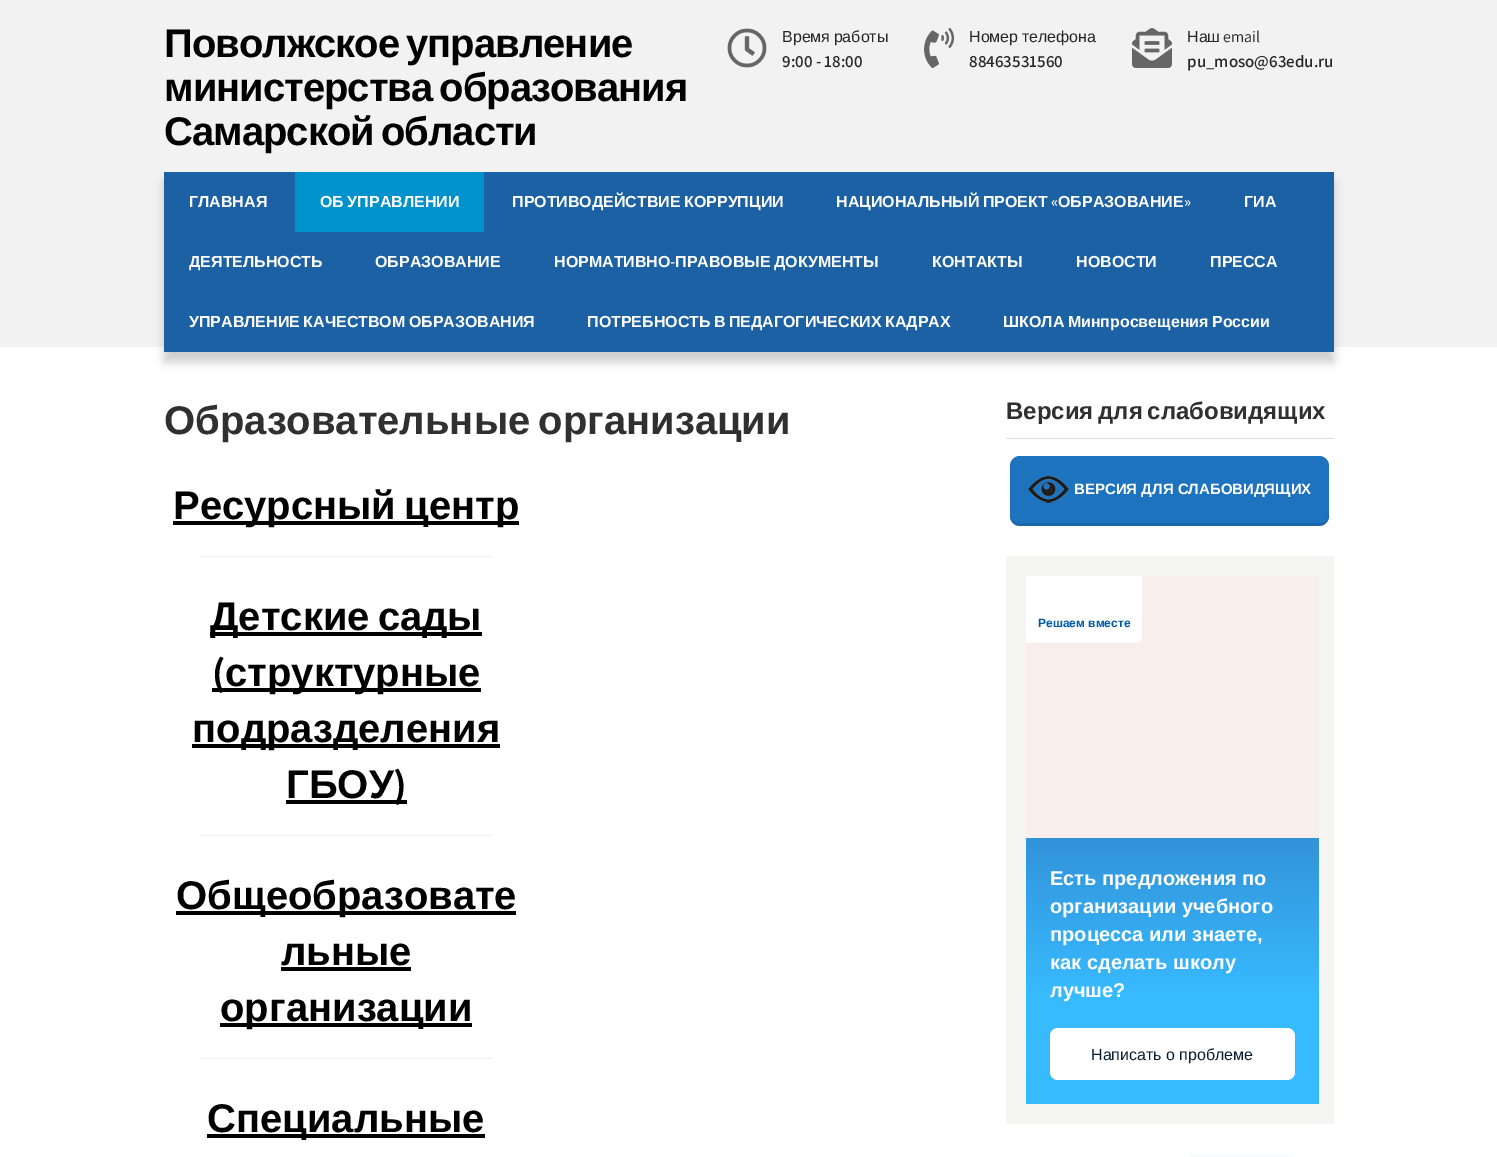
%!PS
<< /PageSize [1497 1157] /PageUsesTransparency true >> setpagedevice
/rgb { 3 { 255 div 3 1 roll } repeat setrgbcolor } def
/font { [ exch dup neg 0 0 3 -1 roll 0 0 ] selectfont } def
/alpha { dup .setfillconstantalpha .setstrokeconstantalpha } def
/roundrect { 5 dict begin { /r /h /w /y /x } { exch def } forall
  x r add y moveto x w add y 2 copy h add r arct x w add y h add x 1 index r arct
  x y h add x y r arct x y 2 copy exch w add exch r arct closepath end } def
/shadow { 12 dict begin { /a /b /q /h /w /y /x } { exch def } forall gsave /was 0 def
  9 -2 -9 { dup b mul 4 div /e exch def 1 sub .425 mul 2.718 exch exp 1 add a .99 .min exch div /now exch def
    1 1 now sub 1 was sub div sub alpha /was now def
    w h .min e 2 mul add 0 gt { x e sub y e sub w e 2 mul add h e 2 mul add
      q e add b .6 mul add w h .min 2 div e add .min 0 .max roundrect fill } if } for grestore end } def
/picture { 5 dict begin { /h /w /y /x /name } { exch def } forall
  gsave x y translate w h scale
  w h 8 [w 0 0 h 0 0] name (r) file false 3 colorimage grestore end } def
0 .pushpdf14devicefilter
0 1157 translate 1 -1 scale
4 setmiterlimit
255 255 255 rgb
0 0 1497 1157 rectfill
242 242 242 rgb
0 0 1497 347 rectfill
(img/1.rgb) 727 28 40 40 picture
(img/2.rgb) 924 27 31 41 picture
(img/3.rgb) 1132 28 40 40 picture
88 88 88 rgb
164 182 1170 180 0 5 0.3 shadow
[
  [164 172 1170 180 29 97 165]
  [295 172 189 60 0 146 204]
  [173 521 346 4 0 0 0]
  [200 556 292 1 238 238 238]
  [210 632 272 4 0 0 0]
  [212 688 269 4 0 0 0]
  [192 744 308 4 0 0 0]
  [286 800 121 4 0 0 0]
  [200 835 292 1 238 238 238]
  [176 911 340 4 0 0 0]
  [281 967 130 4 0 0 0]
  [220 1023 252 4 0 0 0]
  [200 1058 292 1 238 238 238]
  [207 1134 278 4 0 0 0]
  [1006 438 328 1 221 221 221]
] { aload pop rgb rectfill } forall
30 115 190 rgb
1010 456 319 70 10 roundrect fill
0.1 alpha
0 0 0 rgb
1010 513 moveto 1010 516 lineto 1010 522 1014 526 1020 526 curveto 1319 526 lineto 1325 526 1329 522 1329 516 curveto 1329 513 lineto 1329 519 1325 523 1319 523 curveto 1020 523 lineto 1014 523 1010 519 1010 513 curveto closepath fill
1 alpha
(img/4.rgb) 1028 476 41 27 picture
245 245 244 rgb
1006 556 328 568 rectfill
gsave 1026 838 moveto 1319 838 lineto 1319 1104 lineto 1026 1104 lineto closepath clip newpath
<< /ShadingType 2 /ColorSpace /DeviceRGB /Coords [1173 576 1173 1104] /Extend [true true] /Function << /FunctionType 3 /Domain [0 1] /Functions [<< /FunctionType 2 /Domain [0 1] /C0 [0.176 0.451 0.737] /C1 [0.176 0.451 0.737] /N 1 >> << /FunctionType 2 /Domain [0 1] /C0 [0.176 0.451 0.737] /C1 [0.22 0.729 0.996] /N 1 >> << /FunctionType 2 /Domain [0 1] /C0 [0.22 0.729 0.996] /C1 [0.22 0.729 0.996] /N 1 >>] /Bounds [0.26 0.79] /Encode [0 1 0 1 0 1] >> >> shfill grestore
248 239 236 rgb
1026 576 293 262 rectfill
255 255 255 rgb
1026 576 moveto 1142 576 lineto 1142 635 lineto 1142 639.5 1138.5 643 1134 643 curveto 1026 643 lineto closepath fill
1050 1028 245 52 8 roundrect fill
249 251 255 rgb
1190 1154 104 3 rectfill
/LiberationSans-Bold 40 font
0 0 0 rgb
164 57 moveto -3 0 32 -1 0 (Поволжское управление) awidthshow
164 101 moveto -3 0 32 -1 0 (министерства образования) awidthshow
164 145 moveto -3 0 32 -1 0 (Самарской области) awidthshow
/LiberationSans-Regular 16 font
38 38 38 rgb
782 42 moveto -1 0 32 (Время работы) widthshow
/Assistant-SemiBold 17 font
782 67 moveto (9:00 - 18:00) show
/LiberationSans-Regular 16 font
969 42 moveto -1 0 32 (Номер телефона) widthshow
/Assistant-SemiBold 17 font
969 67 moveto (88463531560) show
/LiberationSans-Regular 16 font
1187 42 moveto (Наш) show
/Assistant-Regular 16 font
1223 42 moveto (email) show
/Assistant-SemiBold 17 font
1187 67 moveto (pu_moso@63edu.ru) show
/LiberationSans-Bold 16 font
255 255 255 rgb
189 207 moveto (ГЛАВНАЯ) show
320 207 moveto -1 0 32 (ОБ УПРАВЛЕНИИ) widthshow
512 207 moveto -1 0 32 (ПРОТИВОДЕЙСТВИЕ КОРРУПЦИИ) widthshow
836 207 moveto -1 0 32 (НАЦИОНАЛЬНЫЙ ПРОЕКТ) widthshow
/Assistant-SemiBold 16 font
1051 207 moveto («) show
/LiberationSans-Bold 16 font
1058 207 moveto (ОБРАЗОВАНИЕ) show
/Assistant-SemiBold 16 font
1184 207 moveto (») show
/LiberationSans-Bold 16 font
[
  [(ГИА) 1244 207]
  [(ДЕЯТЕЛЬНОСТЬ) 189 267]
  [(ОБРАЗОВАНИЕ) 375 267]
  [(НОРМАТИВНО) 554 267]
] { aload pop moveto show } forall
/Assistant-SemiBold 16 font
670 267 moveto (-) show
/LiberationSans-Bold 16 font
675 267 moveto -1 0 32 (ПРАВОВЫЕ ДОКУМЕНТЫ) widthshow
[
  [(КОНТАКТЫ) 932 267]
  [(НОВОСТИ) 1076 267]
  [(ПРЕССА) 1210 267]
] { aload pop moveto show } forall
189 327 moveto -1 0 32 (УПРАВЛЕНИЕ КАЧЕСТВОМ ОБРАЗОВАНИЯ) widthshow
587 327 moveto -1 0 32 (ПОТРЕБНОСТЬ В ПЕДАГОГИЧЕСКИХ КАДРАХ) widthshow
1003 327 moveto -1 0 32 (ШКОЛА Минпросвещения России) widthshow
/LiberationSans-Bold 40 font
48 48 48 rgb
164 434 moveto -3 0 32 (Образовательные организации) widthshow
0 0 0 rgb
173 519 moveto -3 0 32 (Ресурсный центр) widthshow
210 630 moveto -3 0 32 (Детские сады) widthshow
/Assistant-Bold 40 font
212 686 moveto (\() show
/LiberationSans-Bold 40 font
[
  [(структурные) 225 686]
  [(подразделения) 192 742]
  [(ГБОУ) 286 798]
] { aload pop moveto show } forall
/Assistant-Bold 40 font
393 798 moveto (\)) show
/LiberationSans-Bold 40 font
[
  [(Общеобразовате) 176 909]
  [(льные) 281 965]
  [(организации) 220 1021]
  [(Специальные) 207 1132]
] { aload pop moveto show } forall
/LiberationSans-Bold 24 font
48 48 48 rgb
1006 419 moveto -2 0 32 (Версия для слабовидящих) widthshow
/LiberationSans-Bold 15 font
255 255 255 rgb
1074 494 moveto (ВЕРСИЯ ДЛЯ СЛАБОВИДЯЩИХ) show
/LiberationSans-Bold 12 font
0 92 169 rgb
1038 627 moveto (Решаем вместе) show
/LiberationSans-Bold 20 font
255 255 255 rgb
[
  [(Есть предложения по) 1050 885]
  [(организации учебного) 1050 913]
  [(процесса или знаете,) 1050 941]
  [(как сделать школу) 1050 969]
  [(лучше?) 1050 997]
] { aload pop moveto show } forall
/LiberationSans-Regular 16 font
11 31 51 rgb
1091 1060 moveto (Написать о проблеме) show
.poppdf14devicefilter showpage
